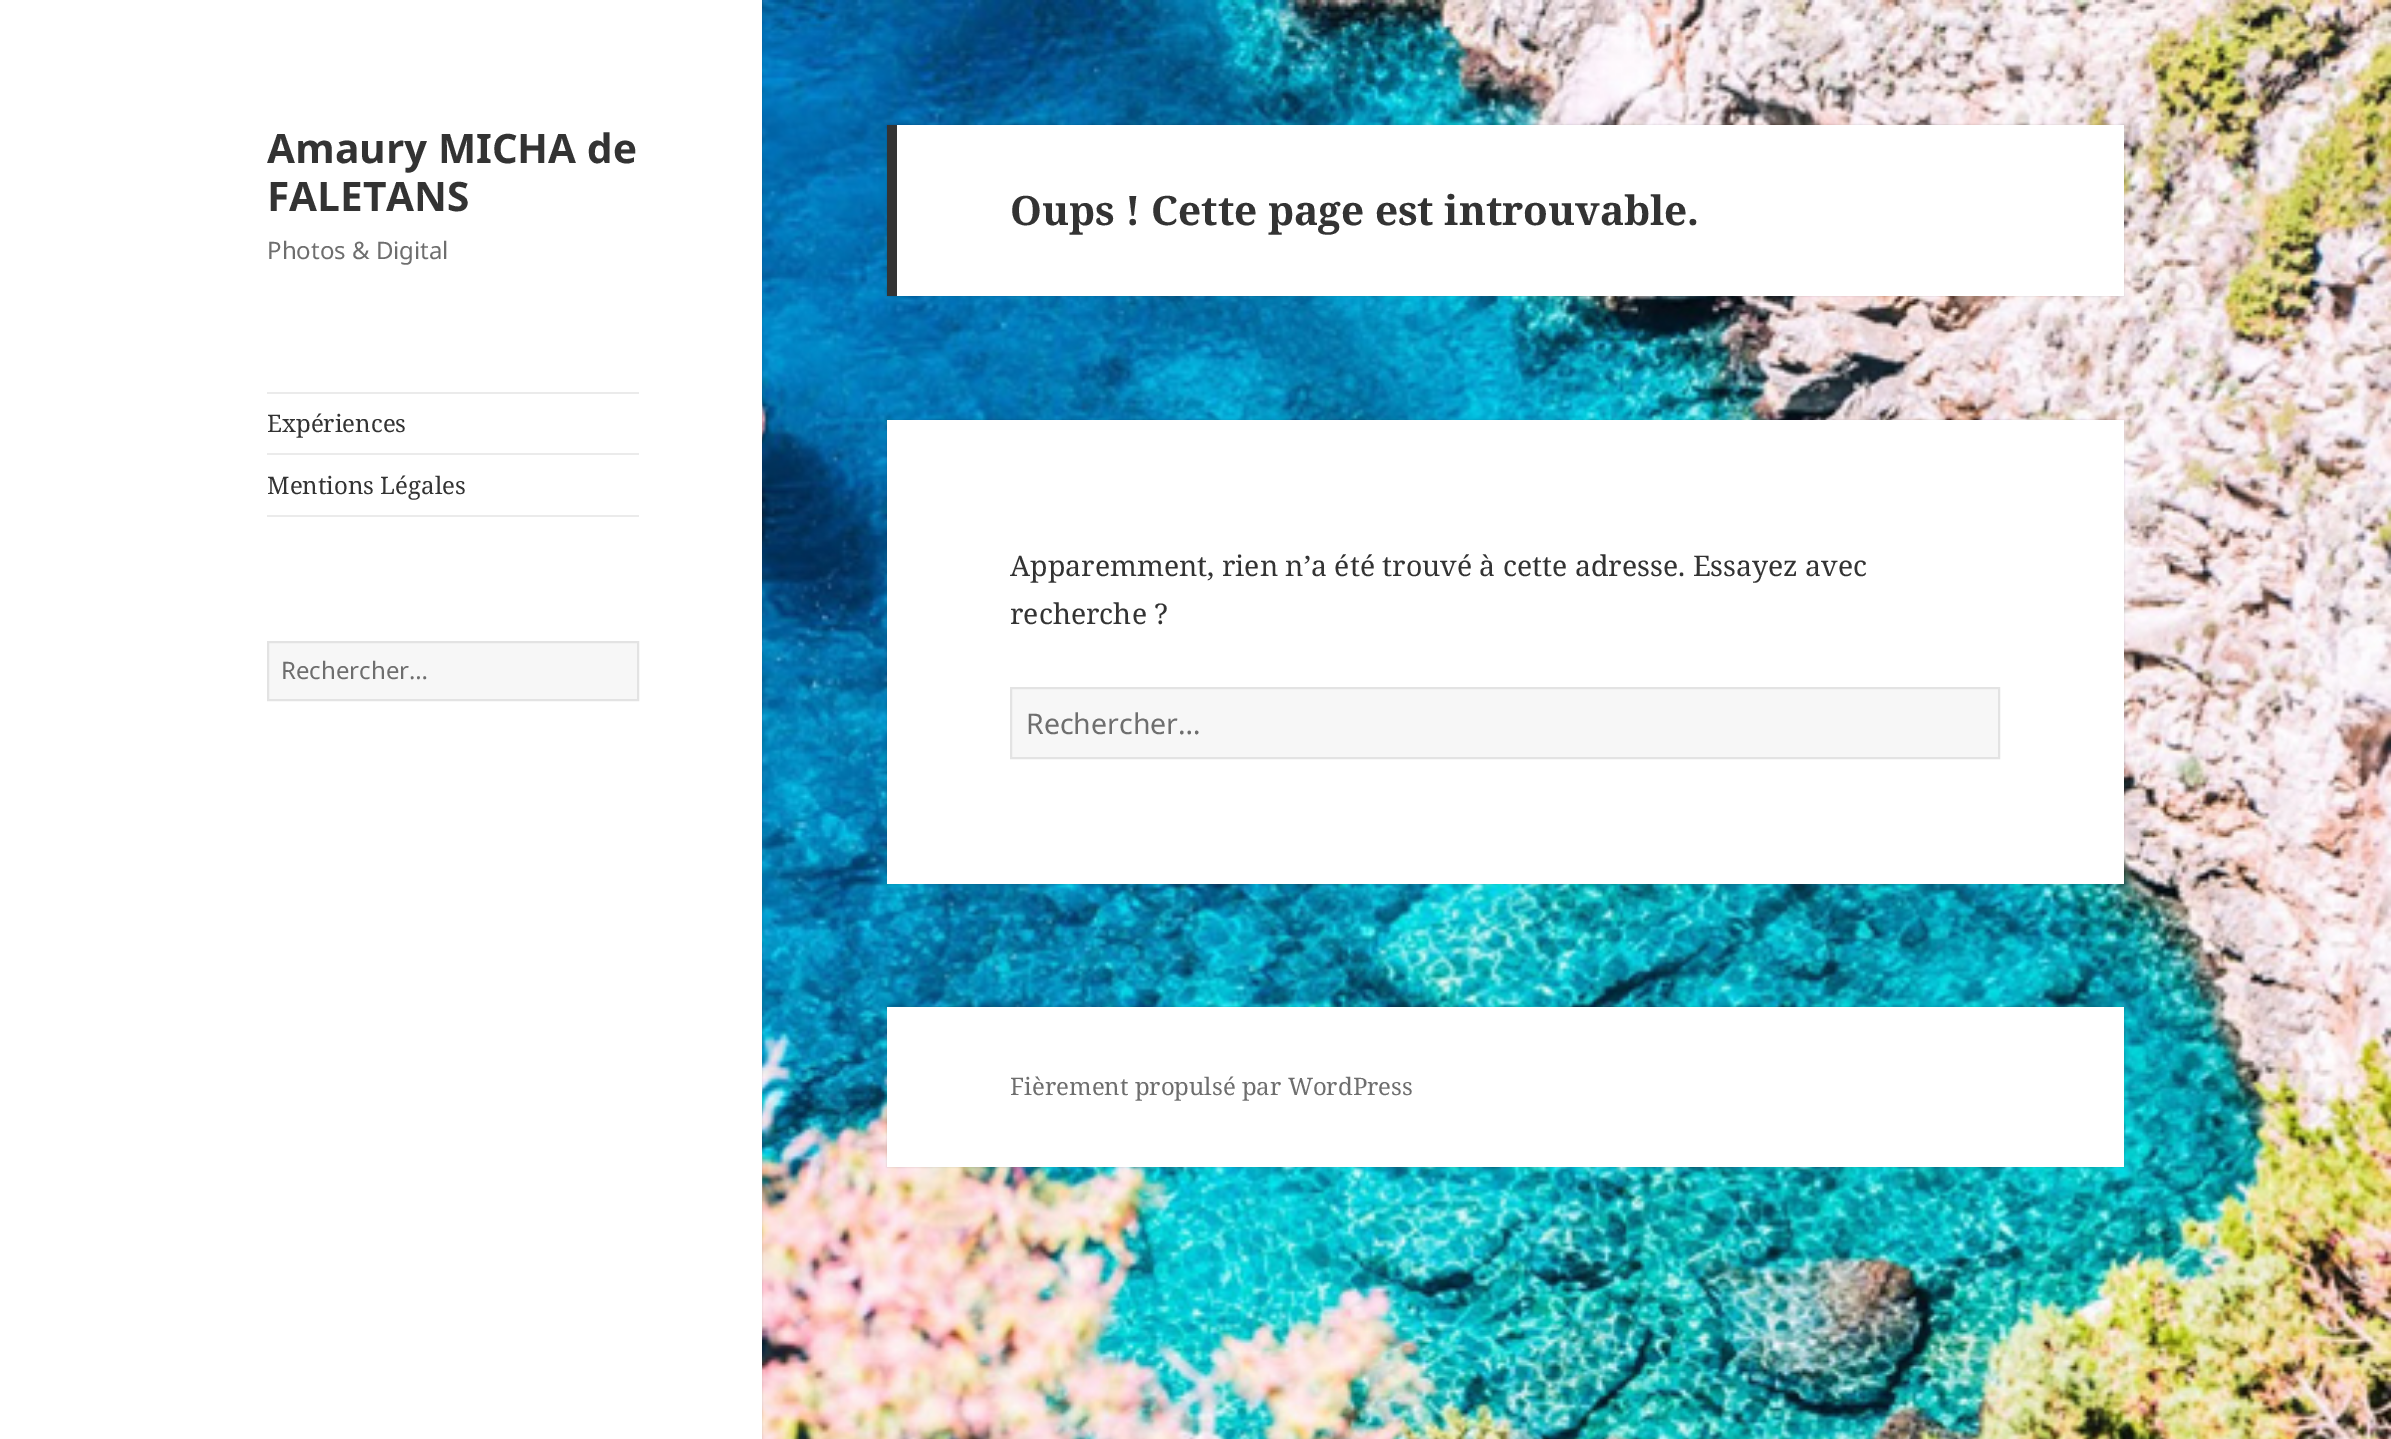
%!PS
<< /PageSize [2391 1439] /PageUsesTransparency true >> setpagedevice
/rgb { 3 { 255 div 3 1 roll } repeat setrgbcolor } def
/font { [ exch dup neg 0 0 3 -1 roll 0 0 ] selectfont } def
/alpha { dup .setfillconstantalpha .setstrokeconstantalpha } def
/roundrect { 5 dict begin { /r /h /w /y /x } { exch def } forall
  x r add y moveto x w add y 2 copy h add r arct x w add y h add x 1 index r arct
  x y h add x y r arct x y 2 copy exch w add exch r arct closepath end } def
/shadow { 12 dict begin { /a /b /q /h /w /y /x } { exch def } forall gsave /was 0 def
  9 -2 -9 { dup b mul 4 div /e exch def 1 sub .425 mul 2.718 exch exp 1 add a .99 .min exch div /now exch def
    1 1 now sub 1 was sub div sub alpha /was now def
    w h .min e 2 mul add 0 gt { x e sub y e sub w e 2 mul add h e 2 mul add
      q e add b .6 mul add w h .min 2 div e add .min 0 .max roundrect fill } if } for grestore end } def
/picture { 5 dict begin { /h /w /y /x /name } { exch def } forall
  gsave x y translate w h scale
  w h 8 [w 0 0 h 0 0] name (r) file false 3 colorimage grestore end } def
0 .pushpdf14devicefilter
0 1439 translate 1 -1 scale
4 setmiterlimit
255 255 255 rgb
0 0 2391 1439 rectfill
(img/1.rgb) 762 0 1629 1439 picture
0 0 0 rgb
0 0 762 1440 0 1 0.15 shadow
[
  [0 0 762 1439 255 255 255]
  [267 392 372 2 235 235 235]
  [267 515 372 2 235 235 235]
  [267 453 372 2 235 235 235]
] { aload pop rgb rectfill } forall
247 247 247 rgb
268 642 moveto 638 642 lineto 638 700 lineto 268 700 lineto closepath gsave fill grestore
227 227 227 rgb
2 setlinewidth
stroke
0 0 0 rgb
887 125 1237 171 0 1 0.15 shadow
255 255 255 rgb
897 125 1227 171 rectfill
51 51 51 rgb
887 125 10 171 rectfill
0 0 0 rgb
887 420 1237 464 0 1 0.15 shadow
255 255 255 rgb
887 420 1237 464 rectfill
247 247 247 rgb
1011 688 moveto 1999 688 lineto 1999 758 lineto 1011 758 lineto closepath gsave fill grestore
227 227 227 rgb
stroke
0 0 0 rgb
887 1007 1237 160 0 1 0.15 shadow
255 255 255 rgb
887 1007 1237 160 rectfill
/NotoSans-Bold 40.5 font
51 51 51 rgb
267 163 moveto (Amaury MICHA de) show
267 211 moveto (FALETANS) show
/NotoSans-Regular 24 font
110 110 110 rgb
267 259 moveto (Photos & Digital) show
/NotoSerif-Regular 24 font
51 51 51 rgb
267 432 moveto (Expériences) show
267 494 moveto (Mentions Légales) show
/NotoSans-Regular 24 font
110 110 110 rgb
281 679 moveto (Rechercher…) show
/NotoSerif-Bold 40.5 font
51 51 51 rgb
1010 225 moveto (Oups ! Cette page est introuvable.) show
/NotoSerif-Regular 28.5 font
1010 576 moveto (Apparemment, rien n’a été trouvé à cette adresse. Essayez avec) show
1010 624 moveto (recherche ?) show
/NotoSans-Regular 28.5 font
110 110 110 rgb
1026 734 moveto (Rechercher…) show
/NotoSerif-Regular 24 font
1010 1095 moveto (Fièrement propulsé par WordPress) show
.poppdf14devicefilter showpage
